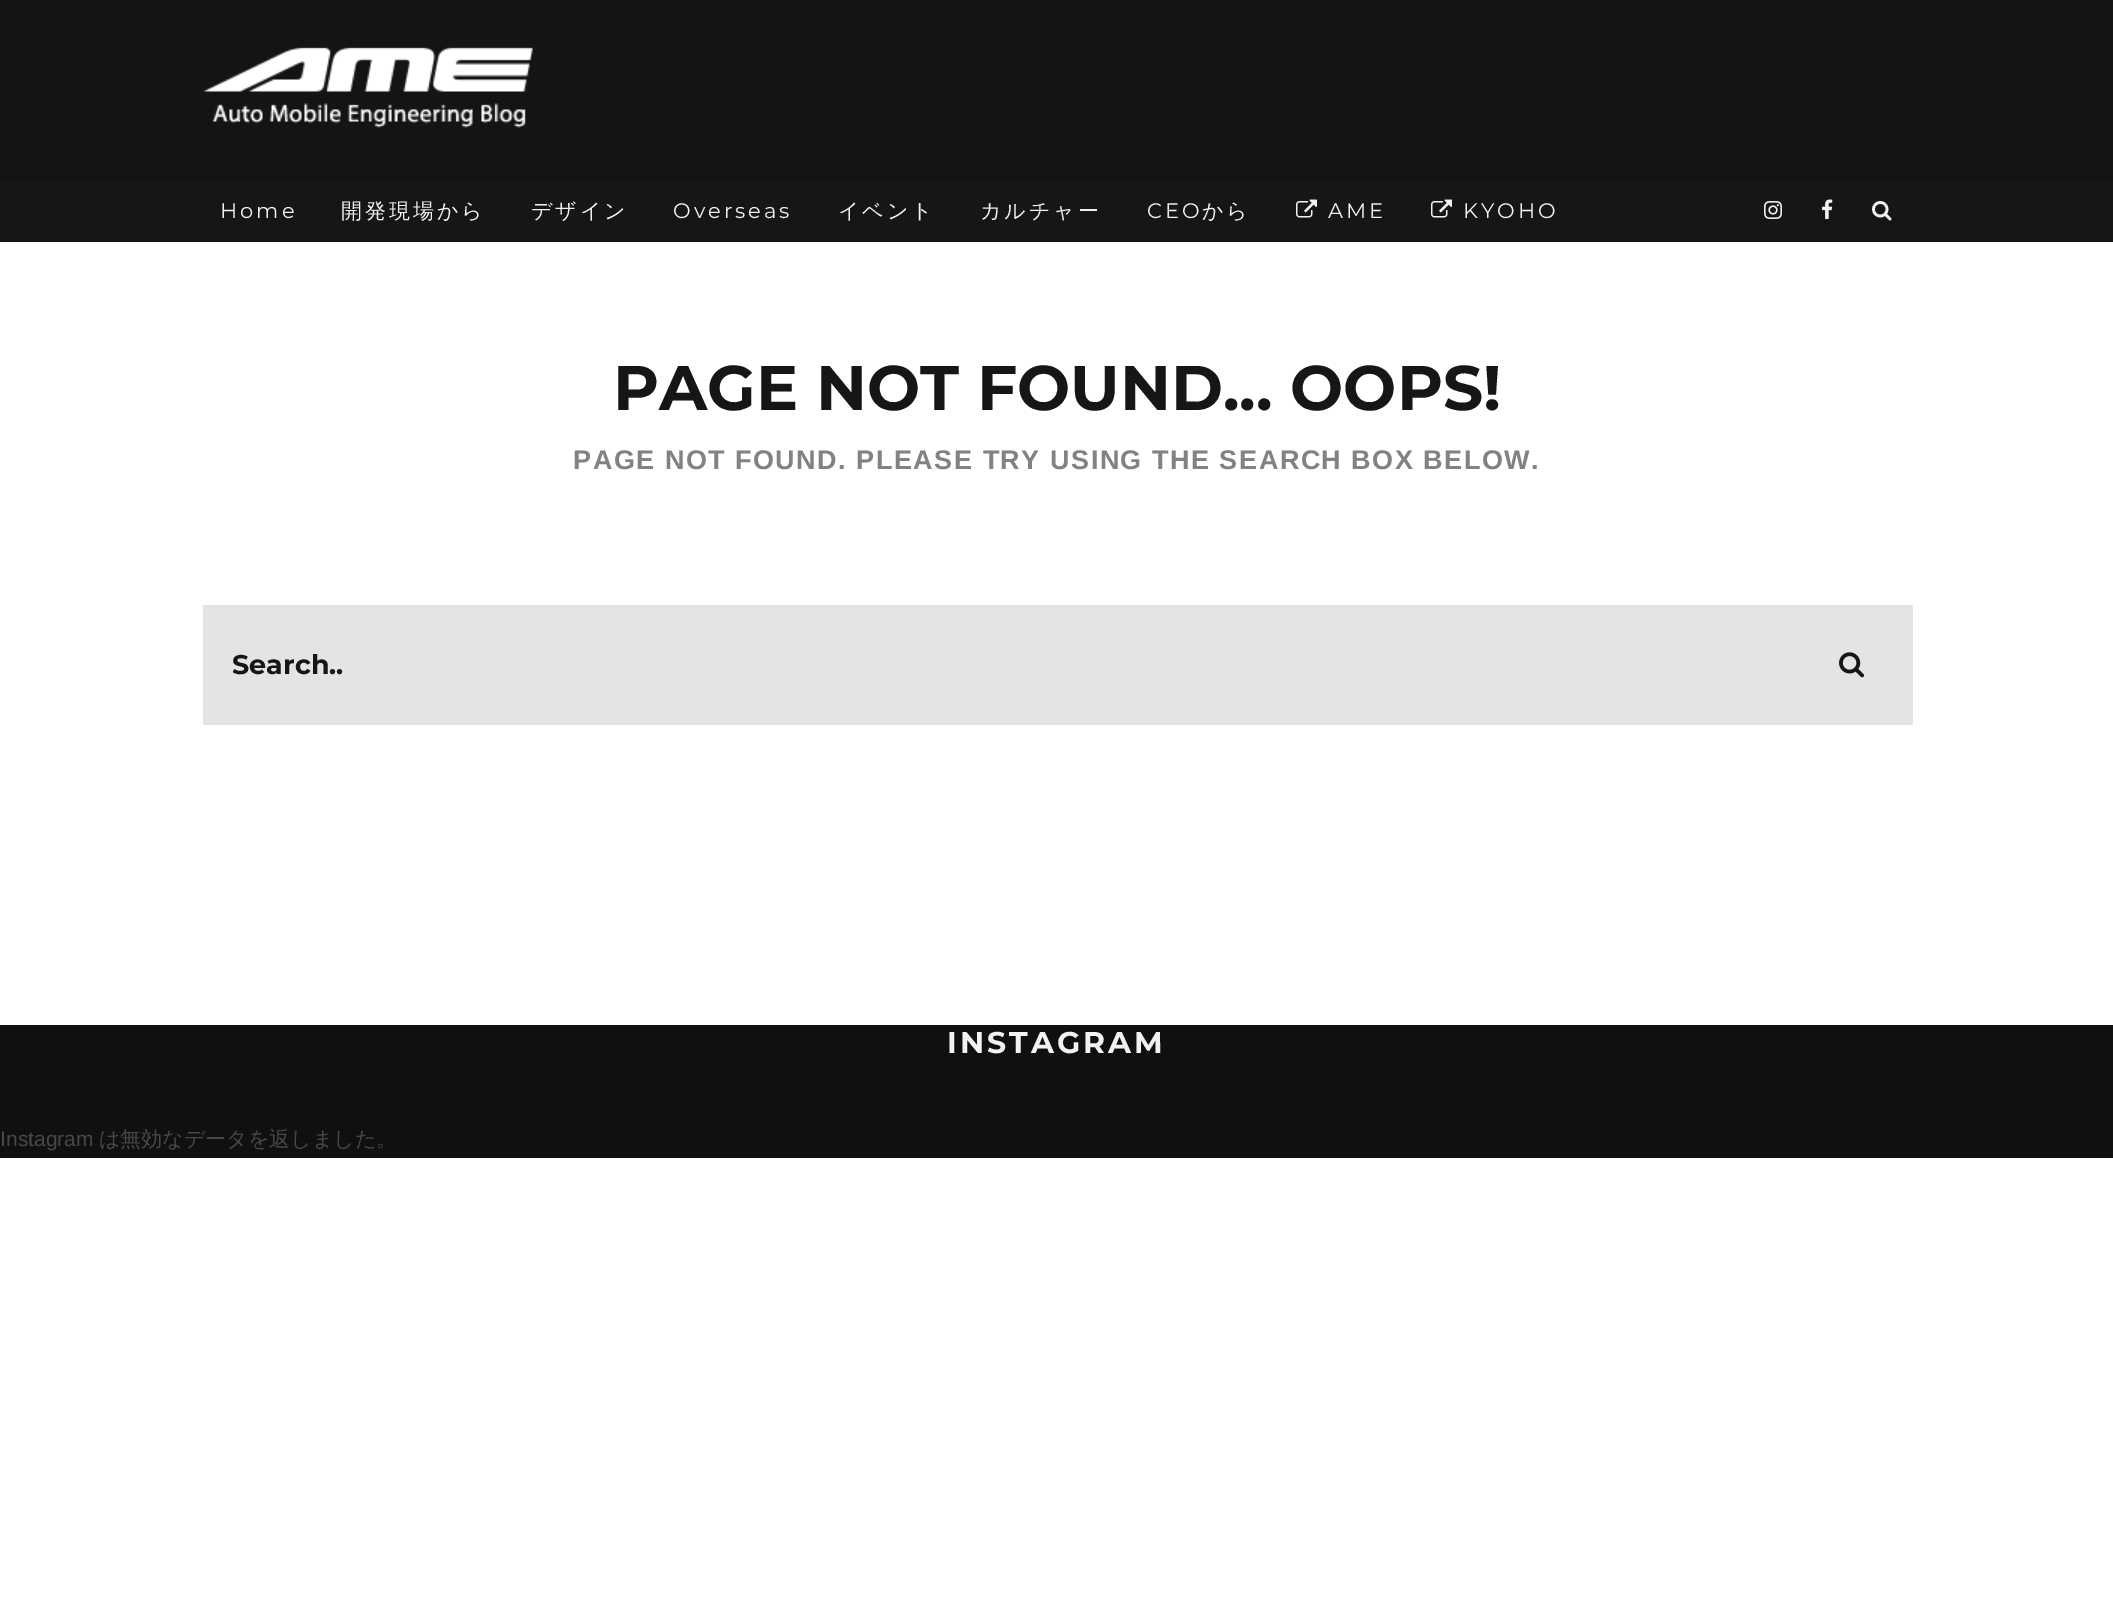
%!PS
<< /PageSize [2113 1601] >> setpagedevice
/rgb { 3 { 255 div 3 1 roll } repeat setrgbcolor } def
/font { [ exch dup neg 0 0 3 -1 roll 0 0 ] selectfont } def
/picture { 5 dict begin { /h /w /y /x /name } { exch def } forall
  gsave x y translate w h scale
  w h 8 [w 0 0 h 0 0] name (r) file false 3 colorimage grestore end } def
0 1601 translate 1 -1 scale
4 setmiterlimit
255 255 255 rgb
0 0 2113 1601 rectfill
20 20 20 rgb
0 0 2113 180 rectfill
(img/1.rgb) 203 47 330 81 picture
22 22 22 rgb
0 180 2113 62 rectfill
(img/2.rgb) 1296 199 21 19 picture
(img/2.rgb) 1431 199 21 19 picture
(img/3.rgb) 1764 201 18 18 picture
(img/4.rgb) 1822 199 11 20 picture
(img/5.rgb) 1872 201 20 20 picture
228 228 228 rgb
203 605 1710 120 rectfill
(img/6.rgb) 1839 652 26 26 picture
16 16 15 rgb
0 1025 2113 133 rectfill
/Montserrat-Regular 21 font
242 242 242 rgb
220 218 moveto 3 0 (Home) ashow
/WenQuanYiZenHei-Medium 21 font
341 218 moveto 3 0 (開発現場から) ashow
531 218 moveto 3 0 (デザイン) ashow
/Montserrat-Regular 21 font
673 218 moveto 3 0 (Overseas) ashow
/WenQuanYiZenHei-Medium 21 font
838 218 moveto 3 0 (イベント) ashow
980 218 moveto 3 0 (カルチャー) ashow
/Montserrat-Regular 21 font
1147 218 moveto 3 0 (CEO) ashow
/WenQuanYiZenHei-Medium 21 font
1202 218 moveto 3 0 (から) ashow
/Montserrat-Regular 21 font
1328 218 moveto 3 0 (AME) ashow
1463 218 moveto 3 0 (KYOHO) ashow
/Montserrat-Bold 63 font
22 22 22 rgb
613 410 moveto (PAGE NOT FOUND... OOPS!) show
/LiberationSans-Bold 27 font
130 130 130 rgb
573 469 moveto 1.5 0 (PAGE NOT FOUND. PLEASE TRY USING THE SEARCH BOX BELOW.) ashow
gsave
233 648 1560 33 rectclip
/Montserrat-Bold 27 font
22 22 22 rgb
232 674 moveto (Search..) show
grestore
/Montserrat-Bold 30 font
242 242 242 rgb
947 1053 moveto 3 0 (INSTAGRAM) ashow
/LiberationSans-Regular 21 font
72 72 72 rgb
0 1146 moveto (Instagram) show
/WenQuanYiZenHei-Medium 21 font
99 1146 moveto (は無効なデータを返しました。) show
showpage
